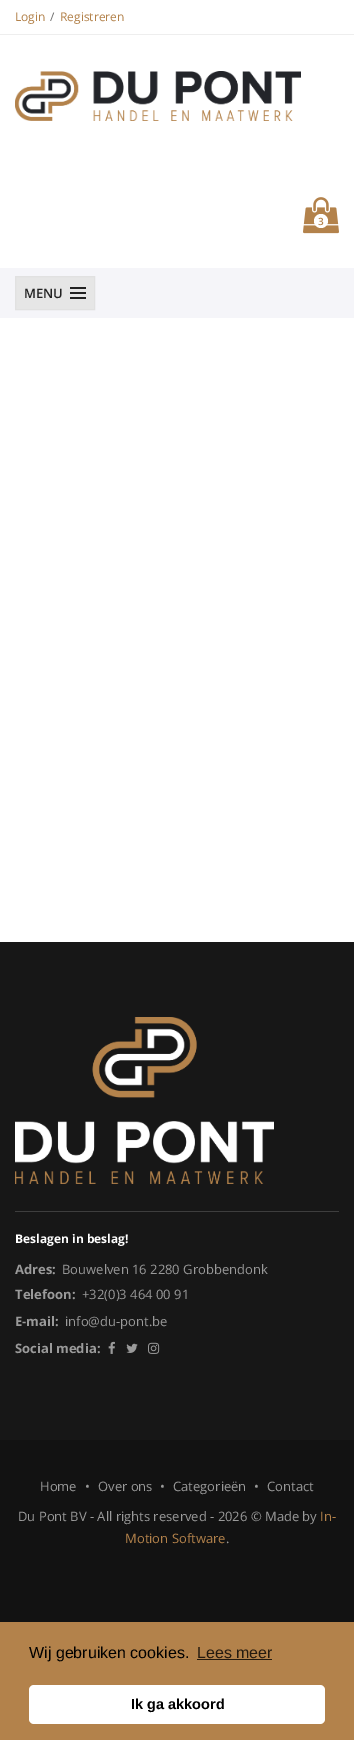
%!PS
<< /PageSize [354 1740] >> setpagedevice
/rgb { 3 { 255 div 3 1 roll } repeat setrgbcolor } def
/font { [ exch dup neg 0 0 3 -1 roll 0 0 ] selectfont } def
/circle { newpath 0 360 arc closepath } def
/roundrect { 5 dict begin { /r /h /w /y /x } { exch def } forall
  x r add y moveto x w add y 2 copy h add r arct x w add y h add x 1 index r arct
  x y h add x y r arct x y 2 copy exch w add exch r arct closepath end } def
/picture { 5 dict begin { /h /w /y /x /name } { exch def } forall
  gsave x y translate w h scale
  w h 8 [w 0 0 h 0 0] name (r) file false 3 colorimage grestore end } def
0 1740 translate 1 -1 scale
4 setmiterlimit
18 18 18 rgb
0 0 354 1740 rectfill
255 255 255 rgb
0 0 354 942 rectfill
238 238 238 rgb
0 34 354 1 rectfill
(img/1.rgb) 15 71 286 50 picture
(img/2.rgb) 303 197 36 37 picture
255 255 255 rgb
321 221 7 circle fill
245 245 249 rgb
0 268 354 50 rectfill
230 230 230 rgb
15.5 276.5 moveto 94.5 276.5 lineto 94.5 309.5 lineto 15.5 309.5 lineto closepath gsave fill grestore
225 225 225 rgb
stroke
[
  [70 287 16 2 34 34 34]
  [70 292 16 2 34 34 34]
  [70 297 16 2 34 34 34]
  [0 942 354 498 23 23 23]
] { aload pop rgb rectfill } forall
(img/3.rgb) 15 1017 259 167 picture
62 62 62 rgb
15 1211 324 1 rectfill
(img/4.rgb) 108 1341 7 13 picture
(img/5.rgb) 126 1343 12 10 picture
(img/6.rgb) 148 1342 12 12 picture
179 130 75 rgb
0 1622 354 118 rectfill
36 26 15 rgb
197 1659 75 1 rectfill
255 255 255 rgb
29 1685 296 39 5 roundrect fill
/OpenSans-Regular 12 font
179 130 75 rgb
15 21 moveto (Login) show
106 106 106 rgb
50 21 moveto (/) show
179 130 75 rgb
60 21 moveto (Registreren) show
/OpenSans-SemiBold 10 font
318 225 moveto (3) show
/OpenSans-SemiBold 13 font
34 34 34 rgb
24 298 moveto (MENU) show
/OpenSans-Bold 12 font
255 255 255 rgb
15 1243 moveto (Beslagen in beslag!) show
/OpenSans-Bold 13 font
154 154 154 rgb
15 1274 moveto (Adres:) show
/OpenSans-Regular 13 font
62 1274 moveto (Bouwelven 16 2280 Grobbendonk) show
/OpenSans-Bold 13 font
15 1299 moveto (Telefoon:) show
/OpenSans-Regular 13 font
82 1299 moveto (+32\(0\)3 464 00 91) show
/OpenSans-Bold 13 font
15 1326 moveto (E-mail:) show
/OpenSans-Regular 13 font
65 1326 moveto (info@du-pont.be) show
/OpenSans-Bold 13 font
15 1353 moveto (Social media:) show
/OpenSans-Regular 13 font
[
  [(Home) 40 1491]
  [(•) 85 1491]
  [(Over ons) 98 1491]
  [(•) 160 1491]
  [(Categorieën) 173 1491]
  [(•) 254 1491]
  [(Contact) 267 1491]
  [(Du Pont BV - All rights reserved - 2026 © Made by) 18 1521]
] { aload pop moveto show } forall
179 130 75 rgb
320 1521 moveto (In-) show
125 1543 moveto (Motion Software) show
154 154 154 rgb
226 1543 moveto (.) show
/LiberationSans-Regular 16 font
0 0 0 rgb
29 1658 moveto (Wij gebruiken cookies.) show
36 26 15 rgb
197 1658 moveto (Lees meer) show
/LiberationSans-Bold 14.5 font
0 0 0 rgb
131 1709 moveto (Ik ga akkoord) show
showpage
